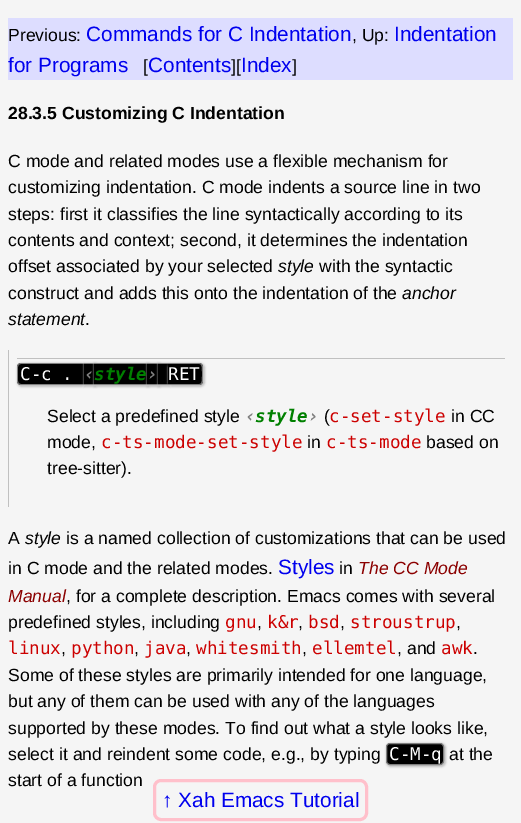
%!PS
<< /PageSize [521 823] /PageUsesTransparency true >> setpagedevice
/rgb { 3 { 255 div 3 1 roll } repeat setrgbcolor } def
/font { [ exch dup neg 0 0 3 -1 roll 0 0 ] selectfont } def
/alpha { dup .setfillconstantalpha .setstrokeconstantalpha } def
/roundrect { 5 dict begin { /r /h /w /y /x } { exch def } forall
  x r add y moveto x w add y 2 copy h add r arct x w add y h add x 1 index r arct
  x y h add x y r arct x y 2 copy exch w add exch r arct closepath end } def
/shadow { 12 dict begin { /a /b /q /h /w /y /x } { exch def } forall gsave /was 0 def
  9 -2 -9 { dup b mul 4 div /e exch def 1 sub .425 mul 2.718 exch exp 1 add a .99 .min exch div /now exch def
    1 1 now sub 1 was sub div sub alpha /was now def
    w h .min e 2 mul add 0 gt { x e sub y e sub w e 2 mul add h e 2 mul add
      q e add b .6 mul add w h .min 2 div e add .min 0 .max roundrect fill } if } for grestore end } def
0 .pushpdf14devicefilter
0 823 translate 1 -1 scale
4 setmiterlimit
245 245 245 rgb
0 0 521 823 rectfill
[
  [8 18 505 62 221 221 255]
  [8 350 1 157 192 192 192]
  [17 358 488 1 192 192 192]
] { aload pop rgb rectfill } forall
17 363 69 24 5 1 1 shadow
0 0 0 rgb
21 363 moveto 84 363 lineto 84 385 lineto 21 385 lineto 19 385 17 383 17 381 curveto 17 367 lineto 17 365 19 363 21 363 curveto closepath fill
128 128 128 rgb
21 363 moveto 84 363 lineto 84 385 lineto 21 385 lineto 19 385 17 383 17 381 curveto 17 367 lineto 17 365 19 363 21 363 curveto closepath 21 364 moveto 84 364 lineto 84 384 lineto 21 384 lineto 19 384 18 383 18 381 curveto 18 367 lineto 18 365 19 364 21 364 curveto closepath eofill
192 192 192 rgb
84 363 12 24 0 1 1 shadow
[
  [84 364 10 20 0 0 0]
  [84 363 10 1 128 128 128]
  [84 384 10 1 128 128 128]
] { aload pop rgb rectfill } forall
192 192 192 rgb
94 363 55 24 0 1 1 shadow
[
  [94 364 53 20 0 0 0]
  [94 363 53 1 128 128 128]
  [94 384 53 1 128 128 128]
] { aload pop rgb rectfill } forall
192 192 192 rgb
147 363 13 24 0 1 1 shadow
[
  [147 384 11 1 128 128 128]
  [147 364 11 20 0 0 0]
  [147 363 11 1 128 128 128]
] { aload pop rgb rectfill } forall
192 192 192 rgb
158 363 12 24 0 1 1 shadow
[
  [158 384 10 1 128 128 128]
  [158 364 10 20 0 0 0]
  [158 363 10 1 128 128 128]
] { aload pop rgb rectfill } forall
192 192 192 rgb
168 363 37 24 5 1 1 shadow
0 0 0 rgb
168 363 moveto 199 363 lineto 201 363 203 365 203 367 curveto 203 381 lineto 203 383 201 385 199 385 curveto 168 385 lineto closepath fill
128 128 128 rgb
168 363 moveto 199 363 lineto 201 363 203 365 203 367 curveto 203 381 lineto 203 383 201 385 199 385 curveto 168 385 lineto closepath 168 364 moveto 188.5 364 lineto 202.5 364 202 361.5 202 374 curveto 202 386.5 202.5 384 188.5 384 curveto 168 384 lineto closepath eofill
192 192 192 rgb
386 743 60 24 5 1 1 shadow
0 0 0 rgb
386.5 743.5 57 21 3.5 roundrect gsave fill grestore
128 128 128 rgb
stroke
255 192 203 rgb
3 setlinewidth
154.5 780.5 212 39 6.5 roundrect stroke
/LiberationSans-Regular 17.6 font
0 0 0 rgb
8 41 moveto (Previous:) show
/LiberationSans-Regular 20.75 font
0 0 238 rgb
86 41 moveto (Commands for C Indentation) show
/LiberationSans-Regular 17.6 font
0 0 0 rgb
352 41 moveto (, Up:) show
/LiberationSans-Regular 20.75 font
0 0 238 rgb
394 41 moveto (Indentation) show
8 72 moveto (for Programs) show
/LiberationSans-Regular 17.6 font
0 0 0 rgb
143 72 moveto ([) show
/LiberationSans-Regular 20.75 font
0 0 238 rgb
148 72 moveto (Contents) show
/LiberationSans-Regular 17.6 font
0 0 0 rgb
231 72 moveto (][) show
/LiberationSans-Regular 20.75 font
0 0 238 rgb
241 72 moveto (Index) show
/LiberationSans-Regular 17.6 font
0 0 0 rgb
292 72 moveto (]) show
/LiberationSans-Bold 17.6 font
8 119 moveto (28.3.5 Customizing C Indentation) show
/LiberationSans-Regular 17.6 font
[
  [(C mode and related modes use a flexible mechanism for) 8 167]
  [(customizing indentation. C mode indents a source line in two) 8 193]
  [(steps: first it classifies the line syntactically according to its) 8 220]
  [(contents and context; second, it determines the indentation) 8 246]
  [(offset associated by your selected) 8 272]
] { aload pop moveto show } forall
/LiberationSans-Italic 17.6 font
278 272 moveto (style) show
/LiberationSans-Regular 17.6 font
319 272 moveto (with the syntactic) show
8 299 moveto (construct and adds this onto the indentation of the) show
/LiberationSans-Italic 17.6 font
402 299 moveto (anchor) show
8 325 moveto (statement) show
/LiberationSans-Regular 17.6 font
85 325 moveto (.) show
/DejaVuSansMono-Regular 17.6 font
255 255 255 rgb
20 380 moveto (C-c .) show
/DejaVuSansMono-BoldItalic 17.6 font
128 128 128 rgb
84 380 moveto (‹) show
0 128 0 rgb
94 380 moveto (style) show
128 128 128 rgb
147 380 moveto (›) show
/DejaVuSansMono-Regular 17.6 font
255 255 255 rgb
168 380 moveto (RET) show
/LiberationSans-Regular 17.6 font
0 0 0 rgb
47 422 moveto (Select a predefined style) show
/DejaVuSansMono-BoldItalic 17.6 font
128 128 128 rgb
245 422 moveto (‹) show
0 128 0 rgb
255 422 moveto (style) show
128 128 128 rgb
308 422 moveto (›) show
/LiberationSans-Regular 17.6 font
0 0 0 rgb
324 422 moveto (\() show
/DejaVuSansMono-Regular 17.6 font
204 0 0 rgb
329 422 moveto (c-set-style) show
/LiberationSans-Regular 17.6 font
0 0 0 rgb
451 422 moveto (in CC) show
47 448 moveto (mode,) show
/DejaVuSansMono-Regular 17.6 font
204 0 0 rgb
101 448 moveto (c-ts-mode-set-style) show
/LiberationSans-Regular 17.6 font
0 0 0 rgb
307 448 moveto (in) show
/DejaVuSansMono-Regular 17.6 font
204 0 0 rgb
326 448 moveto (c-ts-mode) show
/LiberationSans-Regular 17.6 font
0 0 0 rgb
[
  [(based on) 426 448]
  [(tree-sitter\).) 47 474]
  [(A) 8 544]
] { aload pop moveto show } forall
/LiberationSans-Italic 17.6 font
25 544 moveto (style) show
/LiberationSans-Regular 17.6 font
66 544 moveto (is a named collection of customizations that can be used) show
8 574 moveto (in C mode and the related modes.) show
/LiberationSans-Regular 20.75 font
0 0 238 rgb
278 574 moveto (Styles) show
/LiberationSans-Regular 17.6 font
0 0 0 rgb
339 574 moveto (in) show
/LiberationSans-Italic 17.6 font
139 0 0 rgb
358 574 moveto (The CC Mode) show
8 602 moveto (Manual) show
/LiberationSans-Regular 17.6 font
0 0 0 rgb
66 602 moveto (, for a complete description. Emacs comes with several) show
8 628 moveto (predefined styles, including) show
/DejaVuSansMono-Regular 17.6 font
204 0 0 rgb
225 628 moveto (gnu) show
/LiberationSans-Regular 17.6 font
0 0 0 rgb
257 628 moveto (,) show
/DejaVuSansMono-Regular 17.6 font
204 0 0 rgb
267 628 moveto (k&r) show
/LiberationSans-Regular 17.6 font
0 0 0 rgb
298 628 moveto (,) show
/DejaVuSansMono-Regular 17.6 font
204 0 0 rgb
308 628 moveto (bsd) show
/LiberationSans-Regular 17.6 font
0 0 0 rgb
340 628 moveto (,) show
/DejaVuSansMono-Regular 17.6 font
204 0 0 rgb
350 628 moveto (stroustrup) show
/LiberationSans-Regular 17.6 font
0 0 0 rgb
456 628 moveto (,) show
/DejaVuSansMono-Regular 17.6 font
204 0 0 rgb
8 654 moveto (linux) show
/LiberationSans-Regular 17.6 font
0 0 0 rgb
61 654 moveto (,) show
/DejaVuSansMono-Regular 17.6 font
204 0 0 rgb
71 654 moveto (python) show
/LiberationSans-Regular 17.6 font
0 0 0 rgb
134 654 moveto (,) show
/DejaVuSansMono-Regular 17.6 font
204 0 0 rgb
144 654 moveto (java) show
/LiberationSans-Regular 17.6 font
0 0 0 rgb
186 654 moveto (,) show
/DejaVuSansMono-Regular 17.6 font
204 0 0 rgb
196 654 moveto (whitesmith) show
/LiberationSans-Regular 17.6 font
0 0 0 rgb
302 654 moveto (,) show
/DejaVuSansMono-Regular 17.6 font
204 0 0 rgb
312 654 moveto (ellemtel) show
/LiberationSans-Regular 17.6 font
0 0 0 rgb
397 654 moveto (, and) show
/DejaVuSansMono-Regular 17.6 font
204 0 0 rgb
441 654 moveto (awk) show
/LiberationSans-Regular 17.6 font
0 0 0 rgb
[
  [(.) 473 654]
  [(Some of these styles are primarily intended for one language,) 8 681]
  [(but any of them can be used with any of the languages) 8 707]
  [(supported by these modes. To find out what a style looks like,) 8 734]
  [(select it and reindent some code, e.g., by typing) 8 760]
] { aload pop moveto show } forall
/DejaVuSansMono-Regular 17.6 font
255 255 255 rgb
389 760 moveto (C-M-q) show
/LiberationSans-Regular 17.6 font
0 0 0 rgb
449 760 moveto (at the) show
8 786 moveto (start of a function) show
/LiberationSans-Regular 20.75 font
0 0 238 rgb
162 807 moveto (↑ Xah Emacs Tutorial) show
.poppdf14devicefilter showpage
